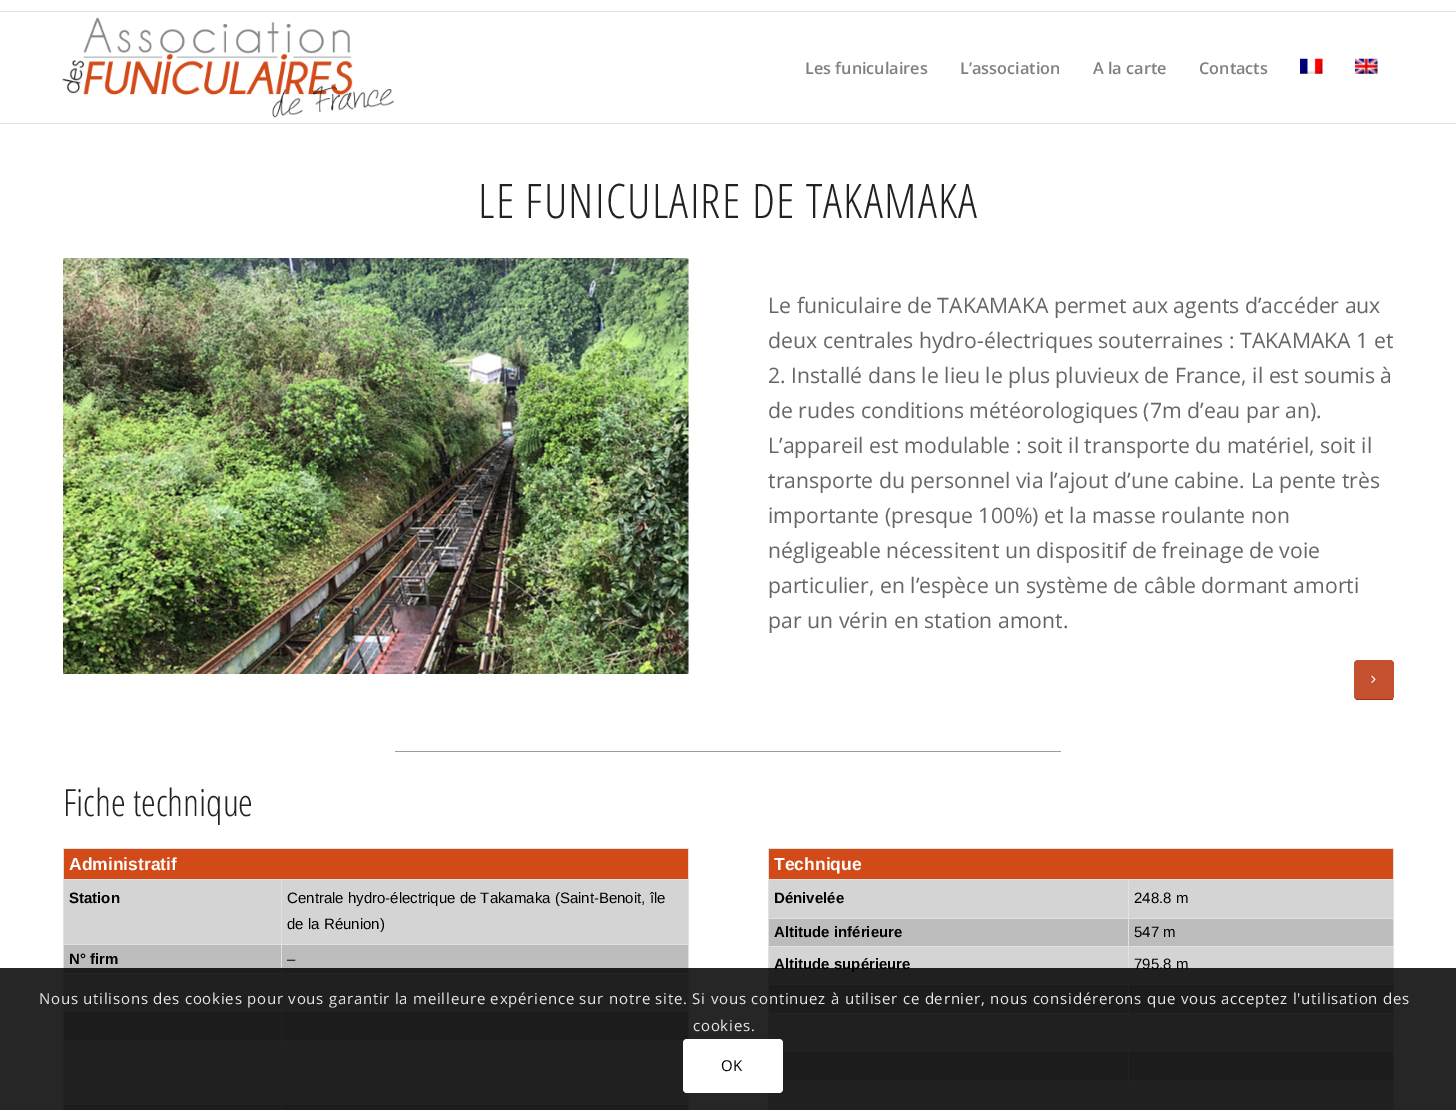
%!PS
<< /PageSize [1456 1110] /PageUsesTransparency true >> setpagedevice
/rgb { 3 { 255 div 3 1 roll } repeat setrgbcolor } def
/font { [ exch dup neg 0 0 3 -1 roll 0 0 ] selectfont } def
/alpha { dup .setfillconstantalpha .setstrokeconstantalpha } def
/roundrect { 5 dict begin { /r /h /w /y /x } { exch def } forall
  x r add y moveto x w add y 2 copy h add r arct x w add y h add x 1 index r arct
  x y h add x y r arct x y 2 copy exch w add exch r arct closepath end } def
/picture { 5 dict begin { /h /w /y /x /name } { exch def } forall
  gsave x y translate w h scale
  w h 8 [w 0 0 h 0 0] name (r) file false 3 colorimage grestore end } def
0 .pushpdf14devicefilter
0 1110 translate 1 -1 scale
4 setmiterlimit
255 255 255 rgb
0 0 1456 1110 rectfill
225 225 225 rgb
0 11 1456 1 rectfill
0 123 1456 1 rectfill
(img/1.rgb) 62 17 332 101 picture
(img/2.rgb) 1300 58 23 16 picture
(img/3.rgb) 1355 58 23 16 picture
(img/4.rgb) 63 258 626 416 picture
195 81 47 rgb
1354 660 40 40 4 roundrect fill
161 48 13 rgb
1356 699 37 1 rectfill
(img/5.rgb) 1371 675 5 8 picture
[
  [395 751 666 1 155 155 155]
  [64 849 624 30 209 74 24]
  [63 848 626 1 225 225 225]
  [688 879 1 162 225 225 225]
  [688 848 1 32 225 225 225]
  [64 1105 624 5 189 188 188]
  [281 1104 1 6 225 225 225]
  [688 1093 1 17 225 225 225]
  [281 1104 408 1 225 225 225]
  [281 1040 1 65 225 225 225]
  [281 1040 408 1 225 225 225]
  [281 1011 1 30 225 225 225]
  [281 1011 408 1 225 225 225]
  [281 973 1 40 225 225 225]
  [281 973 408 1 225 225 225]
  [281 944 1 30 225 225 225]
  [281 944 408 1 225 225 225]
  [281 879 1 66 225 225 225]
  [63 1104 1 6 225 225 225]
  [63 1104 220 1 225 225 225]
  [63 1040 1 65 225 225 225]
  [63 1040 220 1 225 225 225]
  [63 1011 1 30 225 225 225]
  [63 1011 220 1 225 225 225]
  [63 973 1 40 225 225 225]
  [63 973 220 1 225 225 225]
  [63 944 1 30 225 225 225]
  [63 944 220 1 225 225 225]
  [63 879 1 66 225 225 225]
  [63 879 626 1 225 225 225]
  [63 848 1 32 225 225 225]
  [64 1012 217 28 189 188 188]
  [282 1012 406 28 189 188 188]
  [64 880 217 64 213 212 212]
  [282 880 406 64 213 212 212]
  [64 945 217 28 189 188 188]
  [282 945 406 28 189 188 188]
  [64 974 217 37 213 212 212]
  [282 974 406 37 213 212 212]
  [64 1041 217 63 213 212 212]
  [282 1041 406 63 213 212 212]
  [769 849 624 30 209 74 24]
  [768 848 626 1 225 225 225]
  [1393 879 1 231 225 225 225]
  [1393 848 1 32 225 225 225]
  [1128 1080 1 30 225 225 225]
  [1128 1080 266 1 225 225 225]
  [1128 1051 1 30 225 225 225]
  [1128 1051 266 1 225 225 225]
  [1128 1013 1 40 225 225 225]
  [1128 1013 266 1 225 225 225]
  [1128 984 1 30 225 225 225]
  [1128 984 266 1 225 225 225]
  [1128 946 1 39 225 225 225]
  [1128 946 266 1 225 225 225]
  [1128 918 1 30 225 225 225]
  [1128 918 266 1 225 225 225]
  [1128 879 1 40 225 225 225]
  [768 1013 1 26 225 225 225]
  [768 1013 361 1 225 225 225]
  [768 984 1 30 225 225 225]
  [768 984 361 1 225 225 225]
  [768 946 1 39 225 225 225]
  [768 946 361 1 225 225 225]
  [768 918 1 30 225 225 225]
  [768 918 361 1 225 225 225]
  [768 879 1 40 225 225 225]
  [768 879 626 1 225 225 225]
  [768 848 1 32 225 225 225]
  [769 1081 359 29 213 212 212]
  [768 1093 1 17 225 225 225]
  [1129 1081 264 29 213 212 212]
  [769 880 359 38 213 212 212]
  [1129 880 264 38 213 212 212]
  [769 919 359 27 189 188 188]
  [1129 919 264 27 189 188 188]
  [769 947 359 37 213 212 212]
  [1129 947 264 37 213 212 212]
  [769 985 359 28 189 188 188]
  [1129 985 264 28 189 188 188]
  [769 1014 359 37 213 212 212]
  [783 1051 346 1 225 225 225]
  [1129 1014 264 37 213 212 212]
  [783 1052 345 28 189 188 188]
  [783 1080 346 1 225 225 225]
  [1129 1052 264 28 189 188 188]
] { aload pop rgb rectfill } forall
/OpenSans-SemiBold 16.25 font
128 128 128 rgb
[
  [(Les funiculaires) 805 74]
  [(L’association) 960 74]
  [(A la carte) 1093 74]
  [(Contacts) 1199 74]
] { aload pop moveto show } forall
/OpenSansCondensed-Light 47.5 font
34 34 34 rgb
478 218 moveto 1.25 0 (LE FUNICULAIRE DE TAKAMAKA) ashow
/OpenSans-Regular 21.25 font
102 102 102 rgb
[
  [(Le funiculaire de TAKAMAKA permet aux agents d’accéder aux) 768 313]
  [(deux centrales hydro-électriques souterraines : TAKAMAKA 1 et) 768 348]
  [(2. Installé dans le lieu le plus pluvieux de France, il est soumis à) 768 383]
  [(de rudes conditions météorologiques \(7m d’eau par an\).) 768 418]
  [(L’appareil est modulable : soit il transporte du matériel, soit il) 768 453]
  [(transporte du personnel via l’ajout d’une cabine. La pente très) 768 488]
  [(importante \(presque 100%\) et la masse roulante non) 768 523]
  [(négligeable nécessitent un dispositif de freinage de voie) 768 558]
  [(particulier, en l’espèce un système de câble dormant amorti) 768 593]
  [(par un vérin en station amont.) 768 628]
] { aload pop moveto show } forall
/OpenSansCondensed-Light 37.5 font
34 34 34 rgb
63 816 moveto (Fiche technique) show
/LiberationSans-Bold 17.5 font
255 255 255 rgb
69 870 moveto (Administratif) show
/LiberationSans-Bold 15 font
0 0 0 rgb
69 903 moveto (Station) show
/LiberationSans-Regular 15 font
287 903 moveto (Centrale hydro-électrique de Takamaka \(Saint-Benoit, île) show
287 929 moveto (de la Réunion\)) show
/LiberationSans-Bold 15 font
69 964 moveto (N° firm) show
/LiberationSans-Regular 15 font
287 964 moveto (–) show
/LiberationSans-Bold 17.5 font
255 255 255 rgb
774 870 moveto (Technique) show
/LiberationSans-Bold 15 font
0 0 0 rgb
774 903 moveto (Dénivelée) show
/LiberationSans-Regular 15 font
1134 903 moveto (248.8 m) show
/LiberationSans-Bold 15 font
774 937 moveto (Altitude inférieure) show
/LiberationSans-Regular 15 font
1134 937 moveto (547 m) show
/LiberationSans-Bold 15 font
774 969 moveto (Altitude supérieure) show
/LiberationSans-Regular 15 font
1134 969 moveto (795.8 m) show
0.85 alpha
0 968 1456 142 rectfill
/OpenSans-Regular 15 font
1 alpha
232 232 232 rgb
39 1004 moveto 0.75 0 (Nous utilisons des cookies pour vous garantir la meilleure expérience sur notre site. Si vous continuez à utiliser ce dernier, nous considérerons que vous acceptez l'utilisation des) ashow
693 1031 moveto 0.75 0 (cookies.) ashow
255 255 255 rgb
683 1039 100 54 4 roundrect fill
0 0 0 rgb
721 1071 moveto 0.75 0 (OK) ashow
.poppdf14devicefilter showpage
